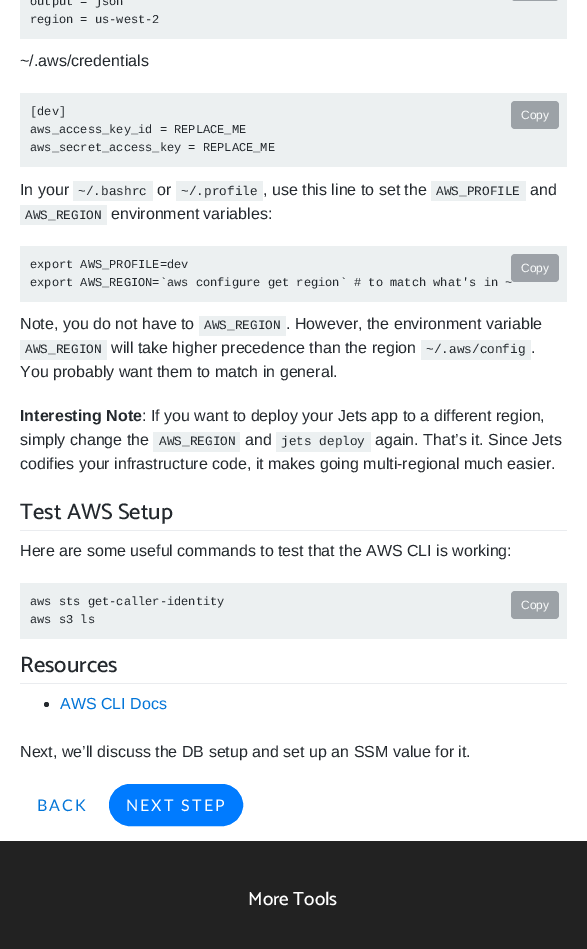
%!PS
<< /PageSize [587 949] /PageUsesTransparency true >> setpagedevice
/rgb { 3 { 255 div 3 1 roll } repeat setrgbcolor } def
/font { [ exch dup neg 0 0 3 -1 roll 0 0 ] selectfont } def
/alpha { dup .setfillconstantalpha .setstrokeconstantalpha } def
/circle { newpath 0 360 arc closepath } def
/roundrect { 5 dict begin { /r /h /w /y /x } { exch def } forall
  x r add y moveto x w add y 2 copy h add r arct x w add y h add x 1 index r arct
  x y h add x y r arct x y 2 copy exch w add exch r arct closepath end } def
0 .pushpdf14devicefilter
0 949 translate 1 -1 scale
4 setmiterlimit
255 255 255 rgb
0 0 587 949 rectfill
236 240 241 rgb
20 0 547 39 rectfill
156 162 167 rgb
511 -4 48 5 4 roundrect fill
236 240 241 rgb
20 93 547 74 rectfill
156 162 167 rgb
511 101 48 28 4 roundrect fill
[
  [73 181 80 20 236 240 241]
  [176 181 87 20 236 240 241]
  [431 181 95 20 236 240 241]
  [20 205 87 20 236 240 241]
  [20 246 547 56 236 240 241]
  [199 316 87 20 236 240 241]
  [20 340 87 20 236 240 241]
  [421 340 110 20 236 240 241]
  [153 432 87 20 236 240 241]
  [276 432 95 20 236 240 241]
  [20 530 547 1 234 236 239]
  [20 583 547 56 236 240 241]
] { aload pop rgb rectfill } forall
156 162 167 rgb
511 591 48 28 4 roundrect fill
234 236 239 rgb
20 683 547 1 rectfill
36 41 46 rgb
46.5 704.5 2.5 circle fill
0 123 255 rgb
109.5 784.5 133 41 20.5 roundrect gsave fill grestore
stroke
34 34 34 rgb
0 841 587 108 rectfill
/LiberationMono-Regular 12 font
36 41 46 rgb
30 5 moveto (output = json) show
30 23 moveto (region = us-west-2) show
/LiberationSans-Regular 16 font
20 66 moveto (~/.aws/credentials) show
/LiberationMono-Regular 12 font
[
  [([dev]) 30 115]
  [(aws_access_key_id = REPLACE_ME) 30 133]
  [(aws_secret_access_key = REPLACE_ME) 30 151]
] { aload pop moveto show } forall
/LiberationSans-Regular 12 font
249 251 251 rgb
521 119 moveto (Copy) show
/LiberationSans-Regular 16 font
36 41 46 rgb
20 195 moveto (In your) show
/LiberationMono-Regular 12.75 font
78 195 moveto (~/.bashrc) show
/LiberationSans-Regular 16 font
157 195 moveto (or) show
/LiberationMono-Regular 12.75 font
181 195 moveto (~/.profile) show
/LiberationSans-Regular 16 font
263 195 moveto (, use this line to set the) show
/LiberationMono-Regular 12.75 font
436 195 moveto (AWS_PROFILE) show
/LiberationSans-Regular 16 font
530 195 moveto (and) show
/LiberationMono-Regular 12.75 font
25 219 moveto (AWS_REGION) show
/LiberationSans-Regular 16 font
111 219 moveto (environment variables:) show
/LiberationMono-Regular 12 font
30 268 moveto (export AWS_PROFILE=dev) show
30 286 moveto (export AWS_REGION=`aws configure get region` # to match what's in ~) show
0.7 alpha
122 128 135 rgb
511 254 48 28 4 roundrect fill
/LiberationSans-Regular 12 font
1 alpha
249 251 251 rgb
521 272 moveto (Copy) show
/LiberationSans-Regular 16 font
36 41 46 rgb
20 329 moveto (Note, you do not have to) show
/LiberationMono-Regular 12.75 font
204 329 moveto (AWS_REGION) show
/LiberationSans-Regular 16 font
286 329 moveto (. However, the environment variable) show
/LiberationMono-Regular 12.75 font
25 353 moveto (AWS_REGION) show
/LiberationSans-Regular 16 font
111 353 moveto (will take higher precedence than the region) show
/LiberationMono-Regular 12.75 font
426 353 moveto (~/.aws/config) show
/LiberationSans-Regular 16 font
531 353 moveto (.) show
20 377 moveto (You probably want them to match in general.) show
/LiberationSans-Bold 16 font
20 421 moveto (Interesting Note) show
/LiberationSans-Regular 16 font
142 421 moveto (: If you want to deploy your Jets app to a different region,) show
20 445 moveto (simply change the) show
/LiberationMono-Regular 12.75 font
159 445 moveto (AWS_REGION) show
/LiberationSans-Regular 16 font
245 445 moveto (and) show
/LiberationMono-Regular 12.75 font
281 445 moveto (jets deploy) show
/LiberationSans-Regular 16 font
375 445 moveto (again. That’s it. Since Jets) show
20 469 moveto (codifies your infrastructure code, it makes going multi-regional much easier.) show
/Catamaran-Medium 22.5 font
20 519 moveto (Test AWS Setup) show
/LiberationSans-Regular 16 font
20 556 moveto (Here are some useful commands to test that the AWS CLI is working:) show
/LiberationMono-Regular 12 font
30 605 moveto (aws sts get-caller-identity) show
30 623 moveto (aws s3 ls) show
/LiberationSans-Regular 12 font
249 251 251 rgb
521 609 moveto (Copy) show
/Catamaran-Medium 22.5 font
36 41 46 rgb
20 672 moveto (Resources) show
/LiberationSans-Regular 16 font
2 117 216 rgb
60 709 moveto (AWS CLI Docs) show
36 41 46 rgb
20 757 moveto (Next, we’ll discuss the DB setup and set up an SSM value for it.) show
/Lato-Regular 16 font
2 117 216 rgb
37 811 moveto 2 0 (BACK) ashow
255 255 255 rgb
126 811 moveto 2 0 (NEXT STEP) ashow
/Catamaran-Medium 19 font
248 905 moveto (More Tools) show
.poppdf14devicefilter showpage
